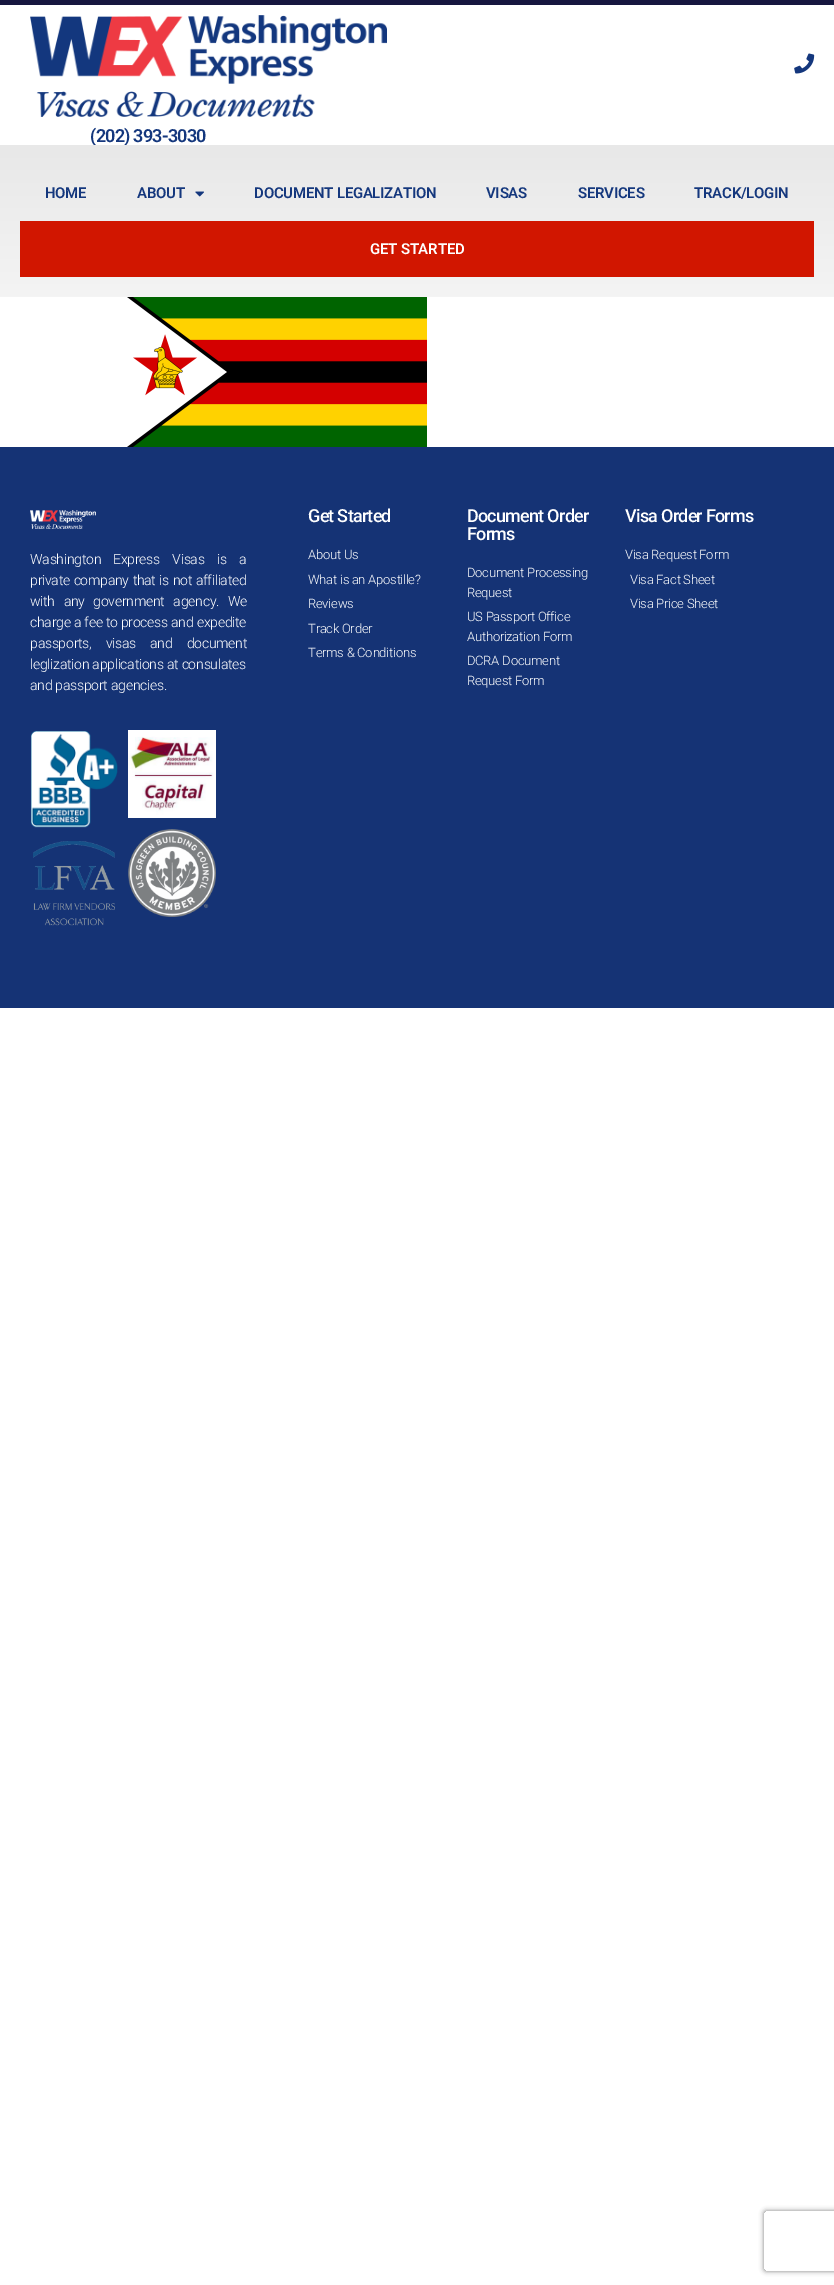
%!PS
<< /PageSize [834 2285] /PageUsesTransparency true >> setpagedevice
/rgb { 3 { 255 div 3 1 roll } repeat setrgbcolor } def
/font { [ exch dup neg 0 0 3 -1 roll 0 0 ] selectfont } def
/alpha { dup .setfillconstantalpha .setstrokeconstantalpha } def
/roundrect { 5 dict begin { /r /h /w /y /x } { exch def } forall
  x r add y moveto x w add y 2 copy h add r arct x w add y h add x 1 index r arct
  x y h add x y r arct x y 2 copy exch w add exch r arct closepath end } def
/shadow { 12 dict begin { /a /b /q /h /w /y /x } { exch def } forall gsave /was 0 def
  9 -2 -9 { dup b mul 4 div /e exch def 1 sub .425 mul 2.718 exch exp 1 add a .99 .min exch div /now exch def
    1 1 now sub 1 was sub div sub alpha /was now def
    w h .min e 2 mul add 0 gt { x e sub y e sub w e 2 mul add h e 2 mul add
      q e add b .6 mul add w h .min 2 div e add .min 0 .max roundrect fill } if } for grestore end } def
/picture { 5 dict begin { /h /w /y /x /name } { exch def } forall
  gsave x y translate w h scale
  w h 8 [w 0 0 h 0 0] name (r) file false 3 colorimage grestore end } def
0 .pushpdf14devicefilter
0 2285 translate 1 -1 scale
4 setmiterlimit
255 255 255 rgb
0 0 834 2285 rectfill
22 22 63 rgb
0 0 834 5 rectfill
(img/1.rgb) 30 15 357 102 picture
(img/2.rgb) 794 53 21 21 picture
(img/4.rgb) 127 297 300 150 picture
21 51 117 rgb
0 447 834 561 rectfill
(img/5.rgb) 30 510 66 19 picture
(img/6.rgb) 31 731 87 97 picture
(img/7.rgb) 128 730 88 88 picture
(img/8.rgb) 33 841 82 85 picture
(img/9.rgb) 128 829 88 88 picture
gsave
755 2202 moveto 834 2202 lineto 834 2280 lineto 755 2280 lineto closepath 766 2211 moveto 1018 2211 lineto 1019 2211 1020 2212 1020 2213 curveto 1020 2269 lineto 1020 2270 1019 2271 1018 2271 curveto 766 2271 lineto 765 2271 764 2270 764 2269 curveto 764 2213 lineto 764 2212 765 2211 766 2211 curveto closepath eoclip newpath
128 128 128 rgb
764 2211 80 60 2 2.5 1 shadow
grestore
/Roboto-SemiBold 18 font
20 55 125 rgb
90 142 moveto -0.75 0 (\(202\) 393-3030) ashow
gsave 0 145 moveto 834 145 lineto 834 297 lineto 0 297 lineto closepath clip newpath
<< /ShadingType 2 /ColorSpace /DeviceRGB /Coords [417 145 417 297] /Extend [true true] /Function << /FunctionType 2 /Domain [0 1] /C0 [0.91 0.91 0.91] /C1 [0.957 0.957 0.957] /N 1 >> >> shfill grestore
/Roboto-SemiBold 15 font
45 198 moveto -0.25 0 (HOME) ashow
137 198 moveto -0.25 0 (ABOUT) ashow
(img/3.rgb) 195 191 9 6 picture
254 198 moveto -0.25 0 (DOCUMENT LEGALIZATION) ashow
486 198 moveto -0.25 0 (VISAS) ashow
578 198 moveto -0.25 0 (SERVICES) ashow
694 198 moveto -0.25 0 (TRACK/LOGIN) ashow
209 22 0 rgb
20 221 794 56 rectfill
255 255 255 rgb
370 254 moveto -0.25 0 (GET STARTED) ashow
/Roboto-Light 14 font
30 564 moveto 9 0 32 -0.25 0 (Washington Express Visas is a) awidthshow
30 585 moveto 0.5 0 32 -0.25 0 (private company that is not affiliated) awidthshow
30 606 moveto 5.5 0 32 -0.25 0 (with any government agency. We) awidthshow
30 627 moveto -0.25 0 (charge a fee to process and expedite) ashow
30 648 moveto 11 0 32 -0.25 0 (passports, visas and document) awidthshow
30 669 moveto -0.25 0 (leglization applications at consulates) ashow
30 690 moveto -0.25 0 (and passport agencies.) ashow
/Roboto-Medium 18 font
308 522 moveto -0.75 0 (Get Started) ashow
/Roboto-Light 13 font
308 559 moveto -0.25 0 (About Us) ashow
308 584 moveto -0.25 0 (What is an Apostille?) ashow
308 608 moveto -0.25 0 (Reviews) ashow
308 633 moveto -0.25 0 (Track Order) ashow
308 657 moveto -0.25 0 (Terms & Conditions) ashow
/Roboto-Medium 18 font
467 522 moveto -0.75 0 (Document Order) ashow
467 540 moveto -0.75 0 (Forms) ashow
/Roboto-Light 13 font
467 577 moveto -0.25 0 (Document Processing) ashow
467 597 moveto -0.25 0 (Request) ashow
467 621 moveto -0.25 0 (US Passport Office) ashow
467 641 moveto -0.25 0 (Authorization Form) ashow
467 665 moveto -0.25 0 (DCRA Document) ashow
467 685 moveto -0.25 0 (Request Form) ashow
/Roboto-Medium 18 font
625 522 moveto -0.75 0 (Visa Order Forms) ashow
/Roboto-Light 13 font
625 559 moveto -0.25 0 (Visa Request Form) ashow
630 584 moveto -0.25 0 (Visa Fact Sheet) ashow
630 608 moveto -0.25 0 (Visa Price Sheet) ashow
.poppdf14devicefilter showpage
